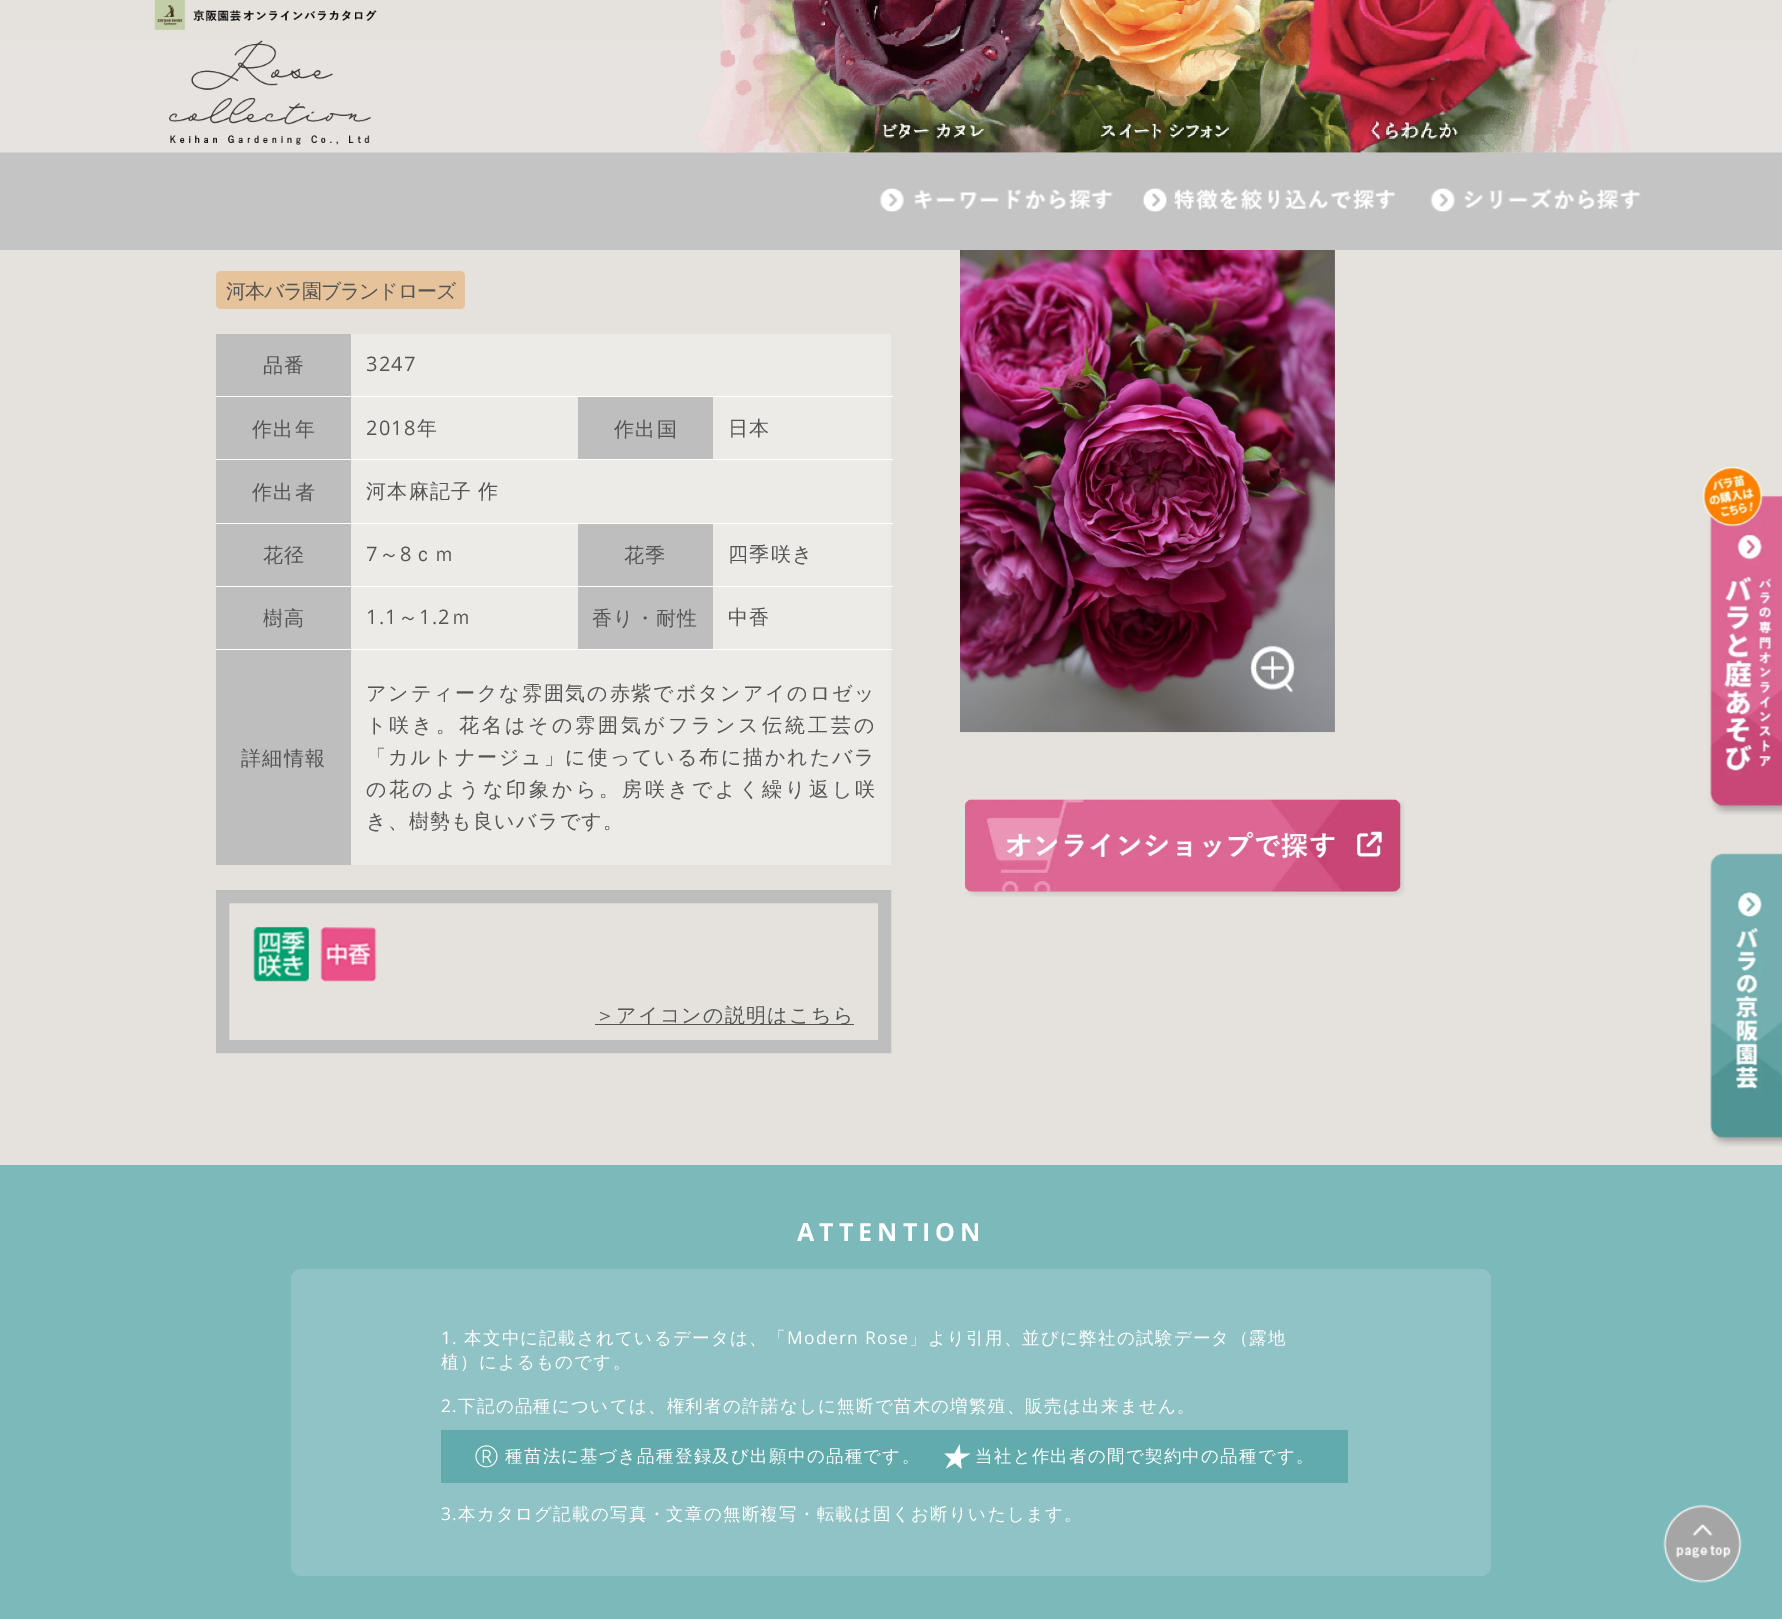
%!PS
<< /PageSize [1782 1619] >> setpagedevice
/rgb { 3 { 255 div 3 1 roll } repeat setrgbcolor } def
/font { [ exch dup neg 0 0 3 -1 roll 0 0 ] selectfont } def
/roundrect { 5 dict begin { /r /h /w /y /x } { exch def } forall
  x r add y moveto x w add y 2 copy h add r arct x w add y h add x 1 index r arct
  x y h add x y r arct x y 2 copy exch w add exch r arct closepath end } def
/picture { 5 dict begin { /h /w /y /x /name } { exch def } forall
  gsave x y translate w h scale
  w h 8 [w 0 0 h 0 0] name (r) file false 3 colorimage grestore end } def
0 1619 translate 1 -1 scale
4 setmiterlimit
229 226 222 rgb
0 0 1782 1619 rectfill
(img/1.rgb) 0 41 1782 209 picture
(img/2.rgb) 154 0 223 145 picture
(img/3.rgb) 696 0 942 153 picture
(img/4.rgb) 879 188 234 24 picture
(img/5.rgb) 1142 188 254 24 picture
(img/6.rgb) 1430 188 211 24 picture
230 195 155 rgb
216 271 249 38 5 roundrect fill
[
  [216 396 677 1 255 255 255]
  [216 334 135 62 190 190 190]
  [351 334 540 62 237 235 232]
  [216 459 677 1 255 255 255]
  [216 397 135 62 190 190 190]
  [351 397 227 62 237 235 232]
  [578 397 135 62 190 190 190]
  [713 397 178 62 237 235 232]
  [216 523 677 1 255 255 255]
  [216 460 135 63 190 190 190]
  [351 460 540 63 237 235 232]
  [216 586 677 1 255 255 255]
  [216 524 135 62 190 190 190]
  [351 524 227 62 237 235 232]
  [578 524 135 62 190 190 190]
  [713 524 178 62 237 235 232]
  [216 649 677 1 255 255 255]
  [216 587 135 62 190 190 190]
  [351 587 227 62 237 235 232]
  [578 587 135 62 190 190 190]
  [713 587 178 62 237 235 232]
  [216 650 135 215 190 190 190]
  [351 650 540 215 237 235 232]
] { aload pop rgb rectfill } forall
190 190 190 rgb
13 setlinewidth
222.5 896.5 662 150 rectstroke
(img/7.rgb) 253 927 56 55 picture
(img/8.rgb) 320 927 57 55 picture
85 85 85 rgb
595 1024 259 1 rectfill
(img/9.rgb) 960 250 375 483 picture
(img/10.rgb) 1250 645 45 48 picture
(img/11.rgb) 965 799 440 98 picture
(img/12.rgb) 1703 466 79 349 picture
(img/13.rgb) 1710 853 72 294 picture
124 185 187 rgb
0 1165 1782 454 rectfill
144 195 198 rgb
291 1269 1200 307 10 roundrect fill
97 171 173 rgb
441 1430 907 53 rectfill
(img/14.rgb) 1663 1504 79 79 picture
/WenQuanYiZenHei-Medium 20 font
85 85 85 rgb
226 298 moveto -1.25 0 (河本バラ園ブランドローズ) ashow
263 372 moveto 1.25 0 (品番) ashow
/OpenSans-Regular 20 font
366 371 moveto 1.25 0 (3247) ashow
/WenQuanYiZenHei-Medium 20 font
252 436 moveto 1.25 0 (作出年) ashow
/OpenSans-Regular 20 font
366 435 moveto 1.25 0 (2018) ashow
/WenQuanYiZenHei-Medium 20 font
417 435 moveto 1.25 0 (年) ashow
614 436 moveto 1.25 0 (作出国) ashow
728 435 moveto 1.25 0 (日本) ashow
252 499 moveto 1.25 0 (作出者) ashow
366 498 moveto -1 0 32 1.25 0 (河本麻記子 作) awidthshow
263 562 moveto 1.25 0 (花径) ashow
/OpenSans-Regular 20 font
366 561 moveto 1.25 0 (7) ashow
/WenQuanYiZenHei-Medium 20 font
379 561 moveto 1.25 0 (～) ashow
/OpenSans-Regular 20 font
400 561 moveto 1.25 0 (8) ashow
/WenQuanYiZenHei-Medium 20 font
413 561 moveto 1.25 0 (ｃｍ) ashow
624 562 moveto 1.25 0 (花季) ashow
728 561 moveto 1.25 0 (四季咲き) ashow
263 625 moveto 1.25 0 (樹高) ashow
/OpenSans-Regular 20 font
366 624 moveto 1.25 0 (1.1) ashow
/WenQuanYiZenHei-Medium 20 font
398 624 moveto 1.25 0 (～) ashow
/OpenSans-Regular 20 font
419 624 moveto 1.25 0 (1.2) ashow
/WenQuanYiZenHei-Medium 20 font
451 624 moveto 1.25 0 (ｍ) ashow
592 625 moveto 1.25 0 (香り・耐性) ashow
728 624 moveto 1.25 0 (中香) ashow
241 765 moveto 1.25 0 (詳細情報) ashow
366 700 moveto 1.85 0 (アンティークな雰囲気の赤紫でボタンアイのロゼッ) ashow
366 732 moveto 3 0 (ト咲き。花名はその雰囲気がフランス伝統工芸の) ashow
366 764 moveto 1.85 0 (「カルトナージュ」に使っている布に描かれたバラ) ashow
366 796 moveto 3 0 (の花のような印象から。房咲きでよく繰り返し咲) ashow
366 828 moveto 1.25 0 (き、樹勢も良いバラです。) ashow
595 1022 moveto 1.25 0 (＞アイコンの説明はこちら) ashow
/OpenSans-Bold 25 font
255 255 255 rgb
797 1241 moveto 5 0 (ATTENTION) ashow
/OpenSans-Regular 17.5 font
441 1344 moveto 1.25 0 (1.) ashow
/WenQuanYiZenHei-Medium 17.5 font
464 1344 moveto 1.25 0 (本文中に記載されているデータは、「) ashow
/OpenSans-Regular 17.5 font
787 1344 moveto 1.25 0 (Modern Rose) ashow
/WenQuanYiZenHei-Medium 17.5 font
909 1344 moveto 1.25 0 (」より引用、並びに弊社の試験データ（露地) ashow
441 1368 moveto 1.25 0 (植）によるものです。) ashow
/OpenSans-Regular 17.5 font
441 1412 moveto 1.25 0 (2.) ashow
/WenQuanYiZenHei-Medium 17.5 font
458 1412 moveto 1.25 0 (下記の品種については、権利者の許諾なしに無断で苗木の増繁殖、販売は出来ません。) ashow
/OpenSans-LightItalic 30 font
474 1467 moveto 1.25 0 (®) ashow
/WenQuanYiZenHei-Medium 17.5 font
505 1462 moveto 1.25 0 (種苗法に基づき品種登録及び出願中の品種です。) ashow
/WenQuanYiZenHei-MediumItalic 30 font
939 1467 moveto 1.25 0 (★) ashow
/WenQuanYiZenHei-Medium 17.5 font
975 1462 moveto 1.25 0 (当社と作出者の間で契約中の品種です。) ashow
/OpenSans-Regular 17.5 font
441 1520 moveto 1.25 0 (3.) ashow
/WenQuanYiZenHei-Medium 17.5 font
458 1520 moveto 1.25 0 (本カタログ記載の写真・文章の無断複写・転載は固くお断りいたします。) ashow
showpage
